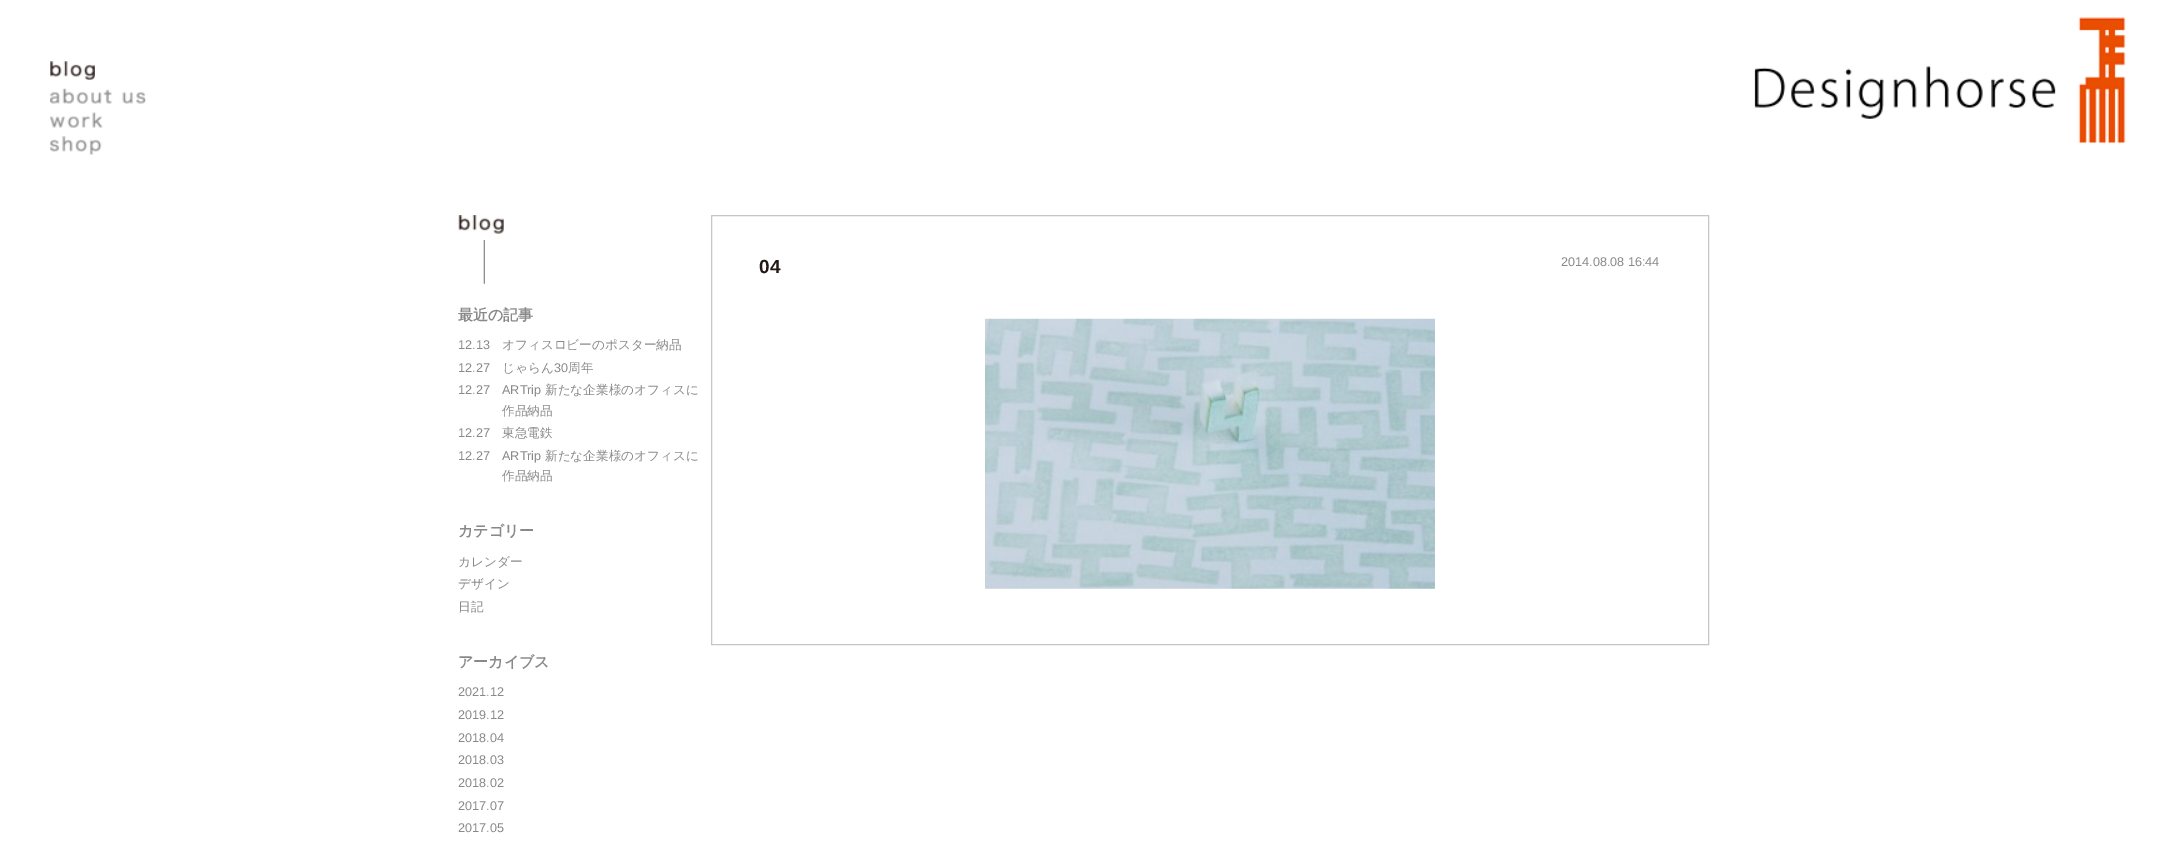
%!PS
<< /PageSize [2166 844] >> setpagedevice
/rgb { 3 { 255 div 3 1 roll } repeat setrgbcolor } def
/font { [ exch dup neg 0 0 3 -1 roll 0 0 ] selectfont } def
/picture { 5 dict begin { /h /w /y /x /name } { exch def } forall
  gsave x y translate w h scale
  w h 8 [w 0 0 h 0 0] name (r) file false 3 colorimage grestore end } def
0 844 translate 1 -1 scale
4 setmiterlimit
255 255 255 rgb
0 0 2166 844 rectfill
(img/1.rgb) 50 61 45 19 picture
(img/2.rgb) 50 88 96 16 picture
(img/3.rgb) 50 112 53 16 picture
(img/4.rgb) 50 136 52 19 picture
(img/5.rgb) 1754 17 372 127 picture
200 197 196 rgb
711.5 215.5 997 429 rectstroke
(img/6.rgb) 985 318 450 271 picture
(img/7.rgb) 483 240 2 44 picture
(img/8.rgb) 458 215 46 19 picture
/LiberationSans-Bold 19 font
35 24 21 rgb
759 273 moveto (04) show
/LiberationSans-Regular 12.6 font
137 137 137 rgb
1561 266 moveto (2014.08.08 16:44) show
/WenQuanYiZenHei-Bold 15 font
458 320 moveto (最近の記事) show
/LiberationSans-Regular 12.6 font
458 349 moveto (12.13) show
/WenQuanYiZenHei-Medium 12.6 font
502 349 moveto (オフィスロビーのポスター納品) show
/LiberationSans-Regular 12.6 font
458 372 moveto (12.27) show
/WenQuanYiZenHei-Medium 12.6 font
502 372 moveto (じゃらん) show
/LiberationSans-Regular 12.6 font
554 372 moveto (30) show
/WenQuanYiZenHei-Medium 12.6 font
568 372 moveto (周年) show
/LiberationSans-Regular 12.6 font
458 394 moveto (12.27) show
502 394 moveto (ARTrip) show
/WenQuanYiZenHei-Medium 12.6 font
545 394 moveto (新たな企業様のオフィスに) show
502 415 moveto (作品納品) show
/LiberationSans-Regular 12.6 font
458 437 moveto (12.27) show
/WenQuanYiZenHei-Medium 12.6 font
502 437 moveto (東急電鉄) show
/LiberationSans-Regular 12.6 font
458 460 moveto (12.27) show
502 460 moveto (ARTrip) show
/WenQuanYiZenHei-Medium 12.6 font
545 460 moveto (新たな企業様のオフィスに) show
502 480 moveto (作品納品) show
/WenQuanYiZenHei-Bold 15 font
458 536 moveto (カテゴリー) show
/WenQuanYiZenHei-Medium 12.6 font
[
  [(カレンダー) 458 566]
  [(デザイン) 458 588]
  [(日記) 458 611]
] { aload pop moveto show } forall
/WenQuanYiZenHei-Bold 15 font
458 667 moveto (アーカイブス) show
/LiberationSans-Regular 12.6 font
[
  [(2021.12) 458 696]
  [(2019.12) 458 719]
  [(2018.04) 458 742]
  [(2018.03) 458 764]
  [(2018.02) 458 787]
  [(2017.07) 458 810]
  [(2017.05) 458 832]
] { aload pop moveto show } forall
showpage
